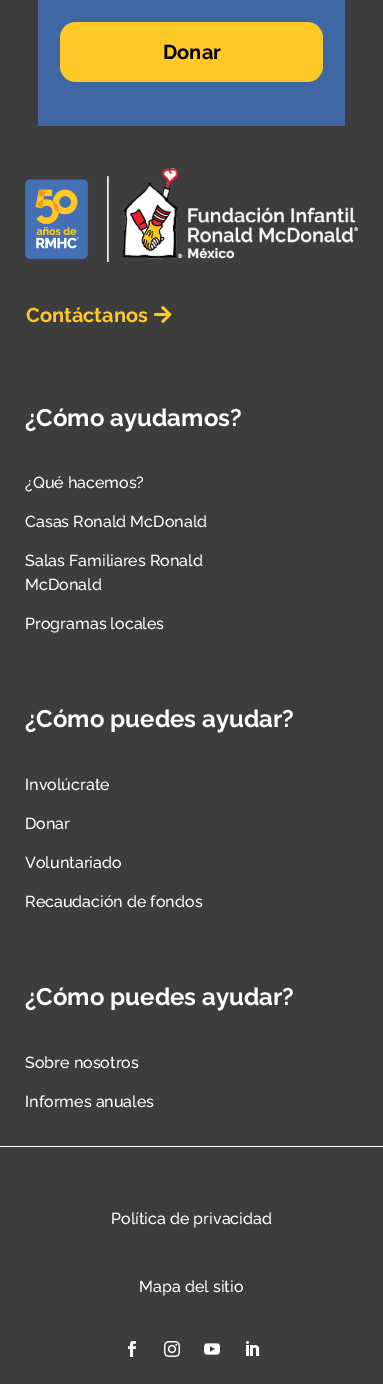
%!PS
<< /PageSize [383 1384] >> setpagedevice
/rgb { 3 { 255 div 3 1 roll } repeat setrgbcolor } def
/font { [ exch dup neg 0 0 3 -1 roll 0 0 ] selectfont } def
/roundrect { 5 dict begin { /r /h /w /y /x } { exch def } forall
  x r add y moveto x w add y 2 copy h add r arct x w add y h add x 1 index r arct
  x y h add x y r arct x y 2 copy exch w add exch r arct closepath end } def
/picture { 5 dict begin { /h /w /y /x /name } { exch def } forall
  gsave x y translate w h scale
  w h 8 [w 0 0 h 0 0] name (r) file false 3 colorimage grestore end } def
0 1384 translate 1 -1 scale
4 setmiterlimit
255 255 255 rgb
0 0 383 1384 rectfill
61 61 61 rgb
0 0 383 1146 rectfill
62 103 164 rgb
38 0 307 126 rectfill
255 200 41 rgb
60 22 263 60 16 roundrect fill
(img/1.rgb) 25 168 333 94 picture
(img/2.rgb) 154 306 18 17 picture
61 61 61 rgb
0 1147 383 237 rectfill
(img/3.rgb) 128 1341 8 16 picture
(img/4.rgb) 164 1341 16 16 picture
(img/5.rgb) 204 1343 16 12 picture
(img/6.rgb) 246 1341 14 15 picture
/Raleway-Bold 20 font
0 0 0 rgb
163 59 moveto (Donar) show
255 200 41 rgb
26 322 moveto (Contáctanos) show
/Raleway-Bold 24 font
255 255 255 rgb
25 426 moveto (¿Cómo ayudamos?) show
/Raleway-Medium 16 font
[
  [(¿Qué hacemos?) 25 488]
  [(Casas Ronald McDonald) 25 527]
  [(Salas Familiares Ronald) 25 566]
  [(McDonald) 25 590]
  [(Programas locales) 25 629]
] { aload pop moveto show } forall
/Raleway-Bold 24 font
25 727 moveto (¿Cómo puedes ayudar?) show
/Raleway-Medium 16 font
[
  [(Involúcrate) 25 790]
  [(Donar) 25 829]
  [(Voluntariado) 25 868]
  [(Recaudación de fondos) 25 907]
] { aload pop moveto show } forall
/Raleway-Bold 24 font
25 1005 moveto (¿Cómo puedes ayudar?) show
/Raleway-Medium 16 font
[
  [(Sobre nosotros) 25 1068]
  [(Informes anuales) 25 1107]
  [(Política de privacidad) 111 1224]
  [(Mapa del sitio) 139 1292]
] { aload pop moveto show } forall
showpage
